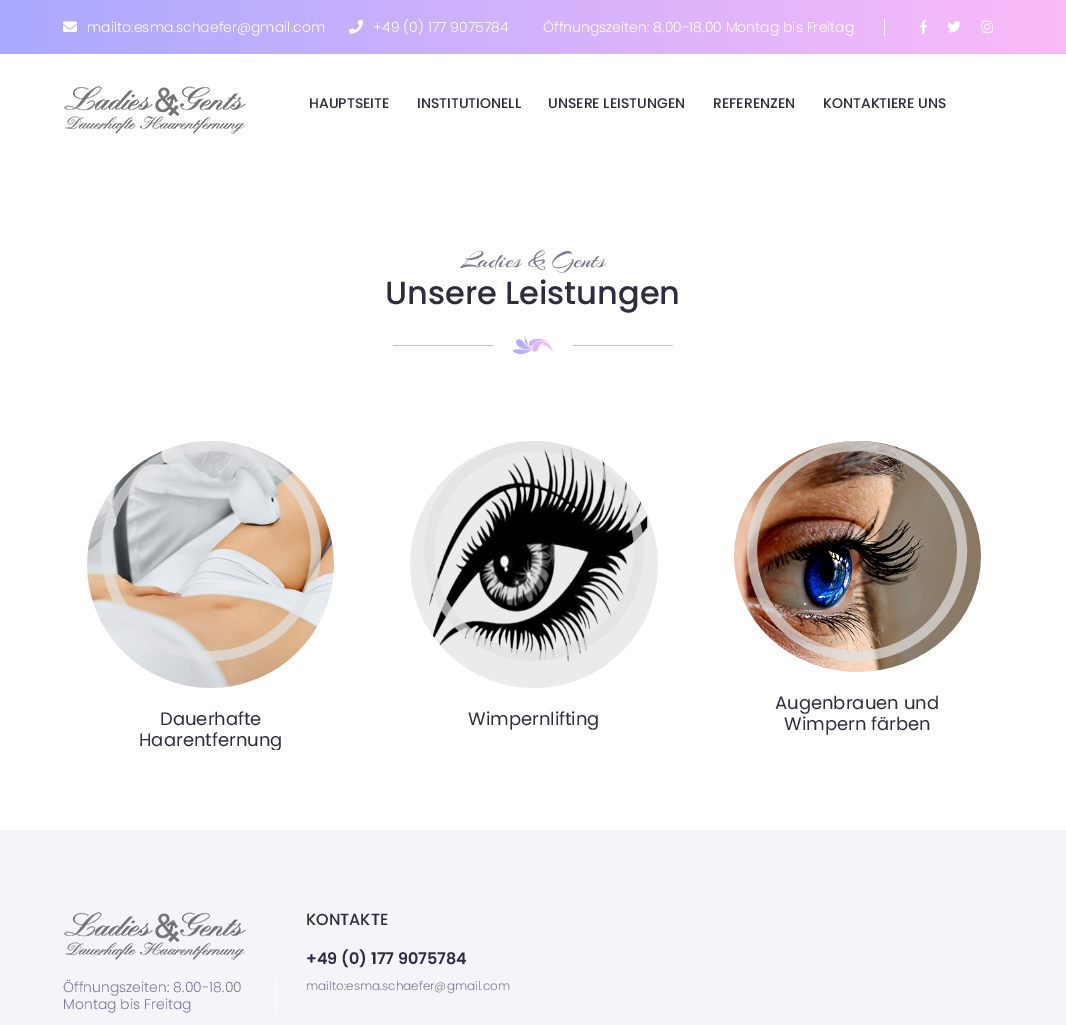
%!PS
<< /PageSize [1066 1025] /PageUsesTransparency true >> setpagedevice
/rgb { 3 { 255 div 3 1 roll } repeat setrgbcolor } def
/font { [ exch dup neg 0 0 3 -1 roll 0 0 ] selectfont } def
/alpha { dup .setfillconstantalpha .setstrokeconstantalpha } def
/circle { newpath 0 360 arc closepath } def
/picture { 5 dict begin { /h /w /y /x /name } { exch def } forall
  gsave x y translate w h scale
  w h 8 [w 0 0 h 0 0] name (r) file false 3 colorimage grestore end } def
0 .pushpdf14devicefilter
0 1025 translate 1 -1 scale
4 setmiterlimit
255 255 255 rgb
0 0 1066 1025 rectfill
gsave 0 0 moveto 1066 0 lineto 1066 54 lineto 0 54 lineto closepath clip newpath
<< /ShadingType 2 /ColorSpace /DeviceRGB /Coords [0 27 1066 27] /Extend [true true] /Function << /FunctionType 2 /Domain [0 1] /C0 [0.667 0.667 1] /C1 [0.984 0.729 0.973] /N 1 >> >> shfill grestore
(img/1.rgb) 63 21 14 11 picture
(img/2.rgb) 349 19 14 15 picture
884 19 1 17 rectfill
(img/3.rgb) 920 19 7 15 picture
(img/4.rgb) 947 21 13 12 picture
(img/5.rgb) 981 20 12 13 picture
(img/6.rgb) 64 86 182 48 picture
193 191 218 rgb
393 345 280 1 rectfill
255 255 255 rgb
493 345 80 1 rectfill
(img/7.rgb) 512 337 41 17 picture
(img/8.rgb) 87 441 247 247 picture
0.7 alpha
225 225 225 rgb
10 setlinewidth
211 551 105 circle stroke
1 alpha
(img/9.rgb) 410 441 248 247 picture
0.7 alpha
534 551 105 circle stroke
1 alpha
(img/10.rgb) 734 441 247 231 picture
0.7 alpha
857 551 105 circle stroke
1 alpha
245 245 249 rgb
0 830 1066 195 rectfill
(img/11.rgb) 64 912 182 48 picture
255 255 255 rgb
275 979 1 34 rectfill
/Poppins-Light 14 font
[
  [(mailto:esma.schaefer@gmail.com) 87 32]
  [(+49 \(0\) 177 9075784) 373 32]
  [(Öffnungszeiten: 8.00-18.00 Montag bis Freitag) 543 32]
] { aload pop moveto show } forall
/Poppins-Medium 14 font
45 44 64 rgb
[
  [(HAUPTSEITE) 309 108]
  [(INSTITUTIONELL) 417 108]
  [(UNSERE LEISTUNGEN) 548 108]
  [(REFERENZEN) 713 108]
  [(KONTAKTIERE UNS) 823 108]
] { aload pop moveto show } forall
/Arizonia-Regular 24 font
122 121 146 rgb
461 267 moveto (Ladies & Gents) show
/Poppins-Medium 32 font
45 44 64 rgb
385 304 moveto (Unsere Leistungen) show
/Poppins-Regular 18 font
160 725 moveto (Dauerhafte) show
gsave
48 441 970 309 rectclip
139 746 moveto (Haarentfernung) show
grestore
[
  [(Wimpernlifting) 468 725]
  [(Augenbrauen und) 775 709]
  [(Wimpern färben) 784 730]
] { aload pop moveto show } forall
/Poppins-Light 14 font
122 121 146 rgb
63 992 moveto (Öffnungszeiten: 8.00-18.00) show
63 1009 moveto (Montag bis Freitag) show
/Poppins-Medium 16 font
45 44 64 rgb
306 925 moveto (KONTAKTE) show
/Poppins-SemiBold 16 font
306 964 moveto (+49 \(0\) 177 9075784) show
/Poppins-Light 12 font
122 121 146 rgb
306 990 moveto (mailto:esma.schaefer@gmail.com) show
.poppdf14devicefilter showpage
